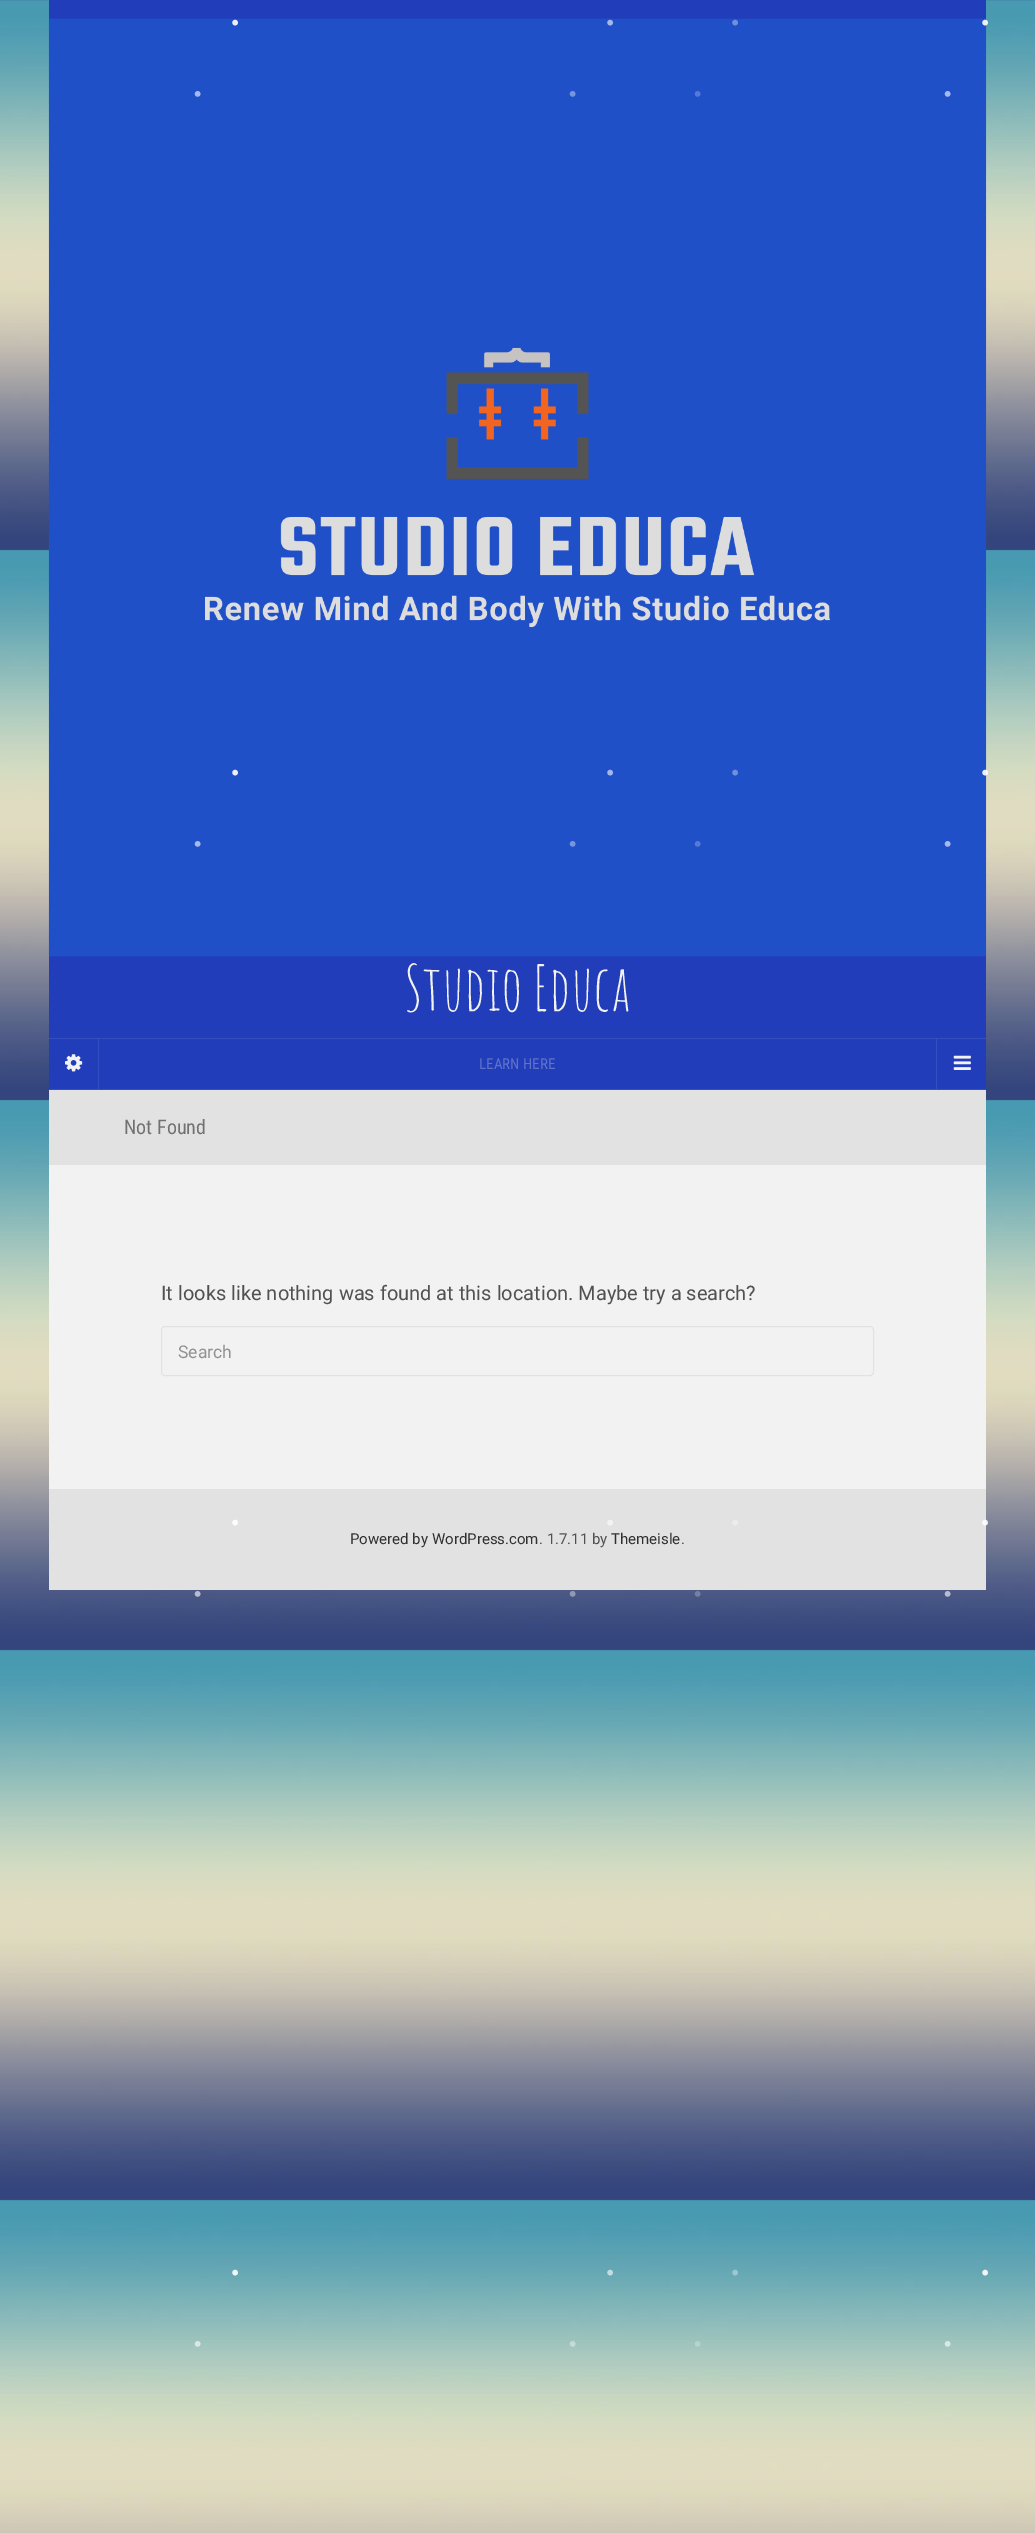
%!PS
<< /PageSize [1035 2533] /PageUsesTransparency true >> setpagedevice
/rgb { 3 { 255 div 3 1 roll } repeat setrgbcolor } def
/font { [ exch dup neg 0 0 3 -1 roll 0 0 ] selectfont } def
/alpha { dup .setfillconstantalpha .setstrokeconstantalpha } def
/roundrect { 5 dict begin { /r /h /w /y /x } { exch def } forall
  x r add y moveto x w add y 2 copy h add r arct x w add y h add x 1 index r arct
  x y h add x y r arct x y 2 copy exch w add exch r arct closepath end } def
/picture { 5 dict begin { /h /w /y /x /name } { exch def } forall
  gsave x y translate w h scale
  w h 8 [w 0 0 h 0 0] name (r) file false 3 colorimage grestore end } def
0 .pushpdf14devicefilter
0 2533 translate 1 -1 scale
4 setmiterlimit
255 255 255 rgb
0 0 1035 2533 rectfill
(img/1.rgb) 0 0 1035 2533 picture
[
  [49 0 937 1089 33 61 186]
  [49 1089 937 1 54 79 192]
  [49 1038 937 1 54 79 192]
] { aload pop rgb rectfill } forall
(img/3.rgb) 48 18 939 939 picture
[
  [49 1165 937 324 242 242 242]
  [49 1090 937 75 226 226 226]
  [49 1489 937 101 226 226 226]
] { aload pop rgb rectfill } forall
0.6 alpha
255 255 255 rgb
5.6 setlinewidth
1 setlinecap
[0 750] 0 setdash
947.5 -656.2 moveto 947.5 2344 lineto stroke
0.9 alpha
985 -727.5 moveto 985 2272.8 lineto stroke
1 alpha
54 79 192 rgb
98 1039 1 50 rectfill
(img/2.rgb) 65 1054 18 18 picture
936 1039 1 50 rectfill
(img/4.rgb) 953 1055 18 15 picture
226 226 226 rgb
1 setlinewidth
0 setlinecap
[] 0 setdash
161.5 1326.5 712 49 3.5 roundrect stroke
/AmaticSC-Regular 62.5 font
242 242 242 rgb
404 1011 moveto (Studio Educa) show
/RobotoCondensed-Regular 15 font
96 115 203 rgb
479 1069 moveto (LEARN HERE) show
/RobotoCondensed-Regular 20 font
113 113 113 rgb
124 1134 moveto (Not Found) show
/Roboto-Regular 20 font
81 81 81 rgb
161 1300 moveto (It looks like nothing was found at this location. Maybe try a search?) show
0.36 alpha
255 255 255 rgb
5.6 setlinewidth
1 setlinecap
[0 750] 0 setdash
735 -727.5 moveto 735 2272.8 lineto stroke
0.24 alpha
697.5 -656.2 moveto 697.5 2344 lineto stroke
0.9 alpha
235 -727.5 moveto 235 2272.8 lineto stroke
/Roboto-Regular 17.5 font
1 alpha
145 145 145 rgb
178 1358 moveto (Search) show
0.6 alpha
255 255 255 rgb
197.5 -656.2 moveto 197.5 2344 lineto stroke
/Roboto-Regular 15 font
1 alpha
48 48 48 rgb
350 1544 moveto (Powered by WordPress.com) show
81 81 81 rgb
539 1544 moveto (. 1.7.11 by) show
0.39 alpha
255 255 255 rgb
572.5 -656.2 moveto 572.5 2344 lineto stroke
1 alpha
48 48 48 rgb
611 1544 moveto (Themeisle) show
0.59 alpha
255 255 255 rgb
610 -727.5 moveto 610 2272.8 lineto stroke
1 alpha
81 81 81 rgb
681 1544 moveto (.) show
.poppdf14devicefilter showpage
